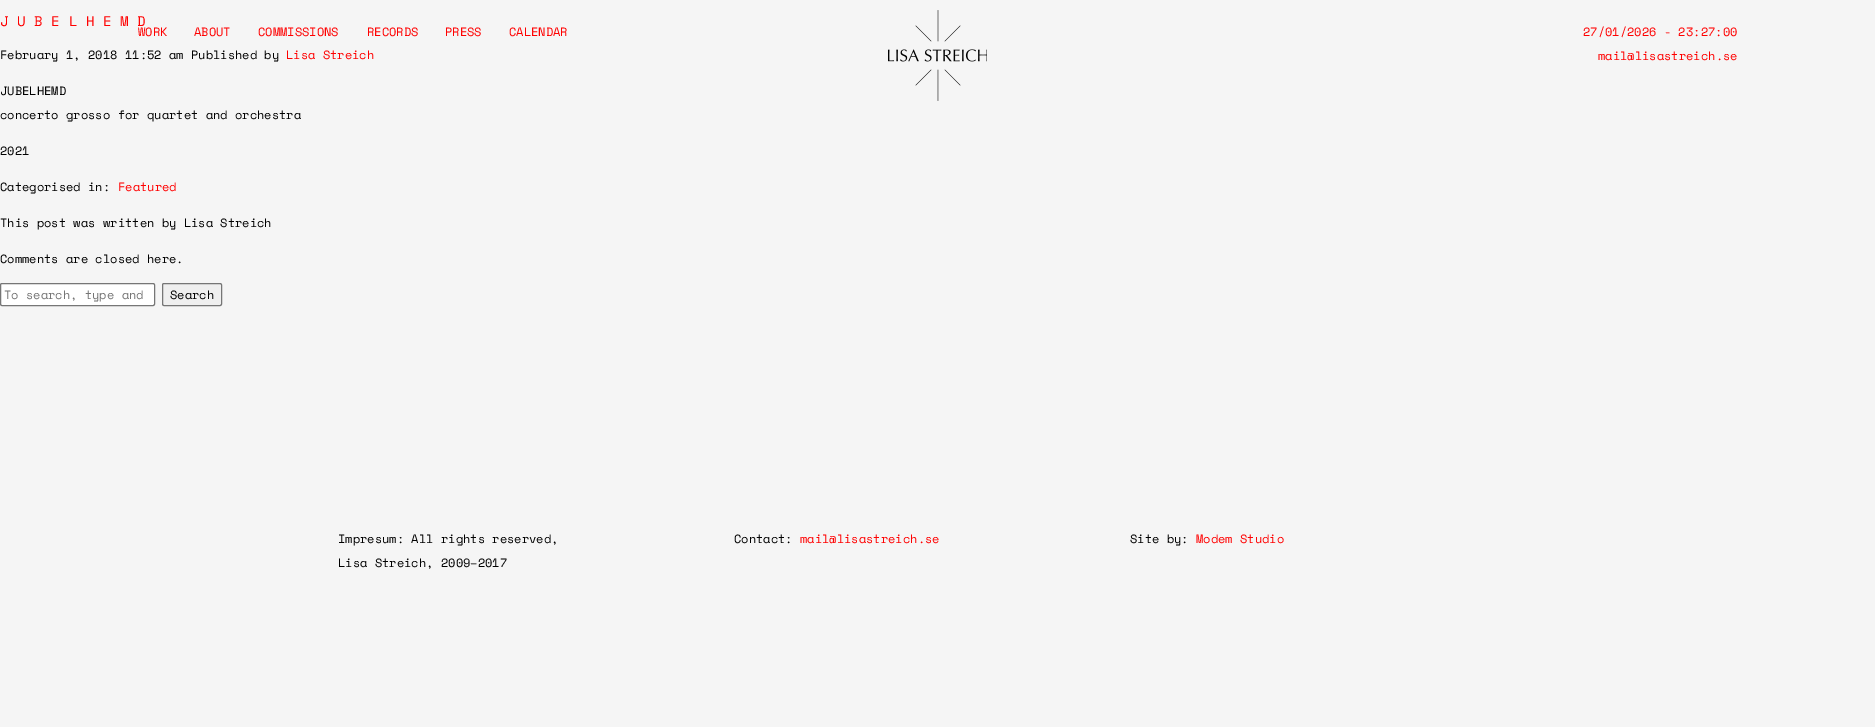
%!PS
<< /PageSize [1875 727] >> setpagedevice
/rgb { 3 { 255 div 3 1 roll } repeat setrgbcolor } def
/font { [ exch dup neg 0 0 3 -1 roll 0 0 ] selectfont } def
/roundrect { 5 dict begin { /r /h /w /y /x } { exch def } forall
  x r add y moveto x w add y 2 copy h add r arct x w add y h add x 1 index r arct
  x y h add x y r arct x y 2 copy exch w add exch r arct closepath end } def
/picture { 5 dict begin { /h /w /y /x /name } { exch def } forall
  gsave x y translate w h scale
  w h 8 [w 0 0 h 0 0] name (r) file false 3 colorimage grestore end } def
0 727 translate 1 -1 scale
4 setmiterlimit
245 245 245 rgb
0 0 1875 727 rectfill
(img/1.rgb) 888 10 99 91 picture
255 255 255 rgb
0.5 283.5 154 22 1.5 roundrect gsave fill grestore
118 118 118 rgb
stroke
239 239 239 rgb
162.5 283.5 59 22 1.5 roundrect gsave fill grestore
118 118 118 rgb
stroke
/SpaceMono-Regular 14 font
255 0 0 rgb
0 26 moveto (J U B E L H E M D) show
/SpaceMono-Regular 12 font
0 0 0 rgb
0 59 moveto (February 1, 2018 11:52 am Published by) show
255 0 0 rgb
286 59 moveto (Lisa Streich) show
0 0 0 rgb
[
  [(JUBELHEMD) 0 95]
  [(concerto grosso for quartet and orchestra) 0 119]
  [(2021) 0 155]
  [(Categorised in:) 0 191]
] { aload pop moveto show } forall
255 0 0 rgb
118 191 moveto (Featured) show
0 0 0 rgb
0 227 moveto (This post was written by Lisa Streich) show
0 263 moveto (Comments are closed here.) show
255 0 0 rgb
[
  [(WORK) 138 36]
  [(ABOUT) 194 36]
  [(COMMISSIONS) 258 36]
  [(RECORDS) 367 36]
  [(PRESS) 445 36]
  [(CALENDAR) 509 36]
  [(27/01/2026 - 23:27:00) 1583 36]
  [(mail@lisastreich.se) 1598 60]
] { aload pop moveto show } forall
117 117 117 rgb
4 299 moveto (To search, type and) show
0 0 0 rgb
[
  [(Search) 170 299]
  [(Impresum: All rights reserved,) 338 543]
  [(Lisa Streich, 2009–2017) 338 567]
  [(Contact:) 734 543]
] { aload pop moveto show } forall
255 0 0 rgb
800 543 moveto (mail@lisastreich.se) show
0 0 0 rgb
1130 543 moveto (Site by:) show
255 0 0 rgb
1196 543 moveto (Modem Studio) show
showpage
